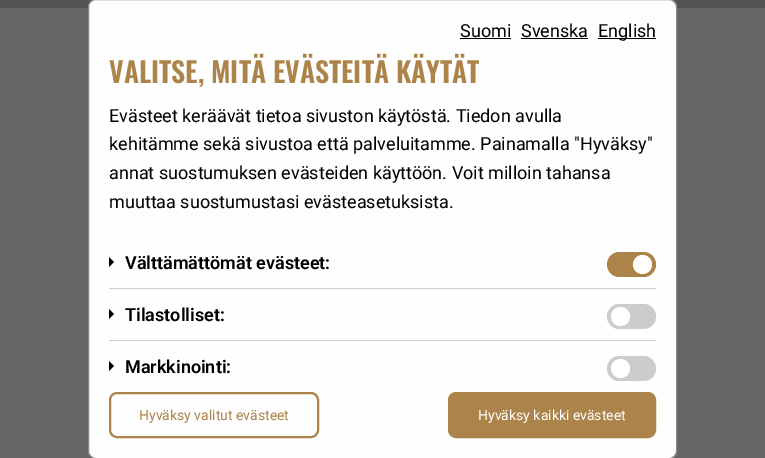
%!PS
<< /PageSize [765 458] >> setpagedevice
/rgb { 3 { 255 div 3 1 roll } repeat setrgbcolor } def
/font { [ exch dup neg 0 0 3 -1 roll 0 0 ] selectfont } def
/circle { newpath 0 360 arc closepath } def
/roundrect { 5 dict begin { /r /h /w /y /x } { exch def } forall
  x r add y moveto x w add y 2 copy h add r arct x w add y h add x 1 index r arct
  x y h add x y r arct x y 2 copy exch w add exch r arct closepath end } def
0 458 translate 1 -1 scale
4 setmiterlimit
102 102 102 rgb
0 0 765 458 rectfill
82 82 82 rgb
0 0 765 8 rectfill
254 254 254 rgb
88.5 -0.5 588 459 7.5 roundrect gsave fill grestore
136 136 136 rgb
stroke
[
  [460 38 51 1 0 0 0]
  [521 38 67 1 0 0 0]
  [598 38 58 1 0 0 0]
  [109 288 547 1 206 206 206]
] { aload pop rgb rectfill } forall
0 0 0 rgb
109 267 moveto 109 257 lineto 114 262 lineto closepath fill
172 131 72 rgb
607 252 49 25 12.5 roundrect fill
255 255 255 rgb
642.5 264.5 9.5 circle fill
206 206 206 rgb
109 340 547 1 rectfill
0 0 0 rgb
109 319 moveto 109 309 lineto 114 314 lineto closepath fill
204 204 204 rgb
607 304 49 25 12.5 roundrect fill
255 255 255 rgb
620.5 316.5 9.5 circle fill
0 0 0 rgb
109 371 moveto 109 361 lineto 114 366 lineto closepath fill
204 204 204 rgb
607 356 49 25 12.5 roundrect fill
255 255 255 rgb
620.5 368.5 9.5 circle fill
172 131 72 rgb
2 setlinewidth
110 393 208 44 7 roundrect stroke
449 393 206 44 7 roundrect gsave fill grestore
stroke
/Roboto-Regular 18 font
0 0 0 rgb
[
  [(Suomi) 460 37]
  [(Svenska) 521 37]
  [(English) 598 37]
] { aload pop moveto show } forall
/Oswald-SemiBold 28 font
172 131 72 rgb
109 83 moveto (VALITSE, MITÄ EVÄSTEITÄ KÄYTÄT) show
/Roboto-Regular 18 font
0 0 0 rgb
[
  [(Evästeet keräävät tietoa sivuston käytöstä. Tiedon avulla) 109 122]
  [(kehitämme sekä sivustoa että palveluitamme. Painamalla "Hyväksy") 109 150]
  [(annat suostumuksen evästeiden käyttöön. Voit milloin tahansa) 109 179]
  [(muuttaa suostumustasi evästeasetuksista.) 109 208]
] { aload pop moveto show } forall
/Roboto-SemiBold 18 font
[
  [(Välttämättömät evästeet:) 125 269]
  [(Tilastolliset:) 125 321]
  [(Markkinointi:) 125 373]
] { aload pop moveto show } forall
/Roboto-Regular 14 font
172 131 72 rgb
139 420 moveto (Hyväksy valitut evästeet) show
255 255 255 rgb
478 420 moveto (Hyväksy kaikki evästeet) show
showpage
